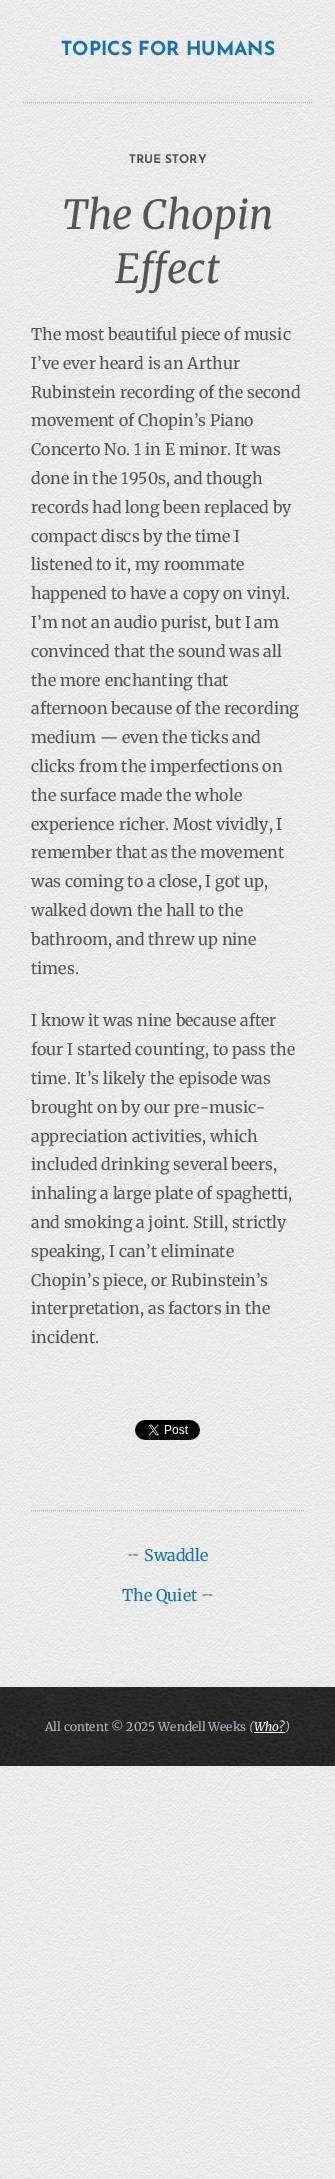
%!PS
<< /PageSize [335 2179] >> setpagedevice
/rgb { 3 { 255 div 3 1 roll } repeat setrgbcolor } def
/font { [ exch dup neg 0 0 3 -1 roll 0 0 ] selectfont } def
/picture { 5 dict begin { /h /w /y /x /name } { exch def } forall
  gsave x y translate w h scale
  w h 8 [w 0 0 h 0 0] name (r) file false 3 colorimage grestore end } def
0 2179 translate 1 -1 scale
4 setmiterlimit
255 255 255 rgb
0 0 335 2179 rectfill
(img/1.rgb) 0 0 335 2179 picture
176 184 197 rgb
[1 1] 0 setdash
23 102.5 moveto 312 102.5 lineto stroke
(img/2.rgb) 135 1420 65 20 picture
31 1510.5 moveto 304 1510.5 lineto stroke
(img/3.rgb) 0 1687 335 79 picture
/JosefinSans-Thin 19.25 font
23 115 168 rgb
61 55 moveto (TOPICS FOR HUMANS) show
/JosefinSans-Thin 12 font
85 85 85 rgb
129 163 moveto (TRUE STORY) show
/Merriweather-Italic 40 font
62 229 moveto (The Chopin) show
115 283 moveto (Effect) show
/Merriweather-Regular 16 font
[
  [(The most beautiful piece of music) 31 340]
  [(I’ve ever heard is an Arthur) 31 369]
  [(Rubinstein recording of the second) 31 398]
  [(movement of Chopin’s Piano) 31 426]
  [(Concerto No. 1 in E minor. It was) 31 455]
  [(done in the 1950s, and though) 31 484]
  [(records had long been replaced by) 31 513]
  [(compact discs by the time I) 31 542]
  [(listened to it, my roommate) 31 570]
  [(happened to have a copy on vinyl.) 31 599]
  [(I’m not an audio purist, but I am) 31 628]
  [(convinced that the sound was all) 31 657]
  [(the more enchanting that) 31 686]
  [(afternoon because of the recording) 31 714]
  [(medium — even the ticks and) 31 743]
  [(clicks from the imperfections on) 31 772]
  [(the surface made the whole) 31 801]
  [(experience richer. Most vividly, I) 31 830]
  [(remember that as the movement) 31 858]
  [(was coming to a close, I got up,) 31 887]
  [(walked down the hall to the) 31 916]
  [(bathroom, and threw up nine) 31 945]
  [(times.) 31 974]
  [(I know it was nine because after) 31 1026]
  [(four I started counting, to pass the) 31 1055]
  [(time. It’s likely the episode was) 31 1084]
  [(brought on by our pre-music-) 31 1113]
  [(appreciation activities, which) 31 1142]
  [(included drinking several beers,) 31 1170]
  [(inhaling a large plate of spaghetti,) 31 1199]
  [(and smoking a joint. Still, strictly) 31 1228]
  [(speaking, I can’t eliminate) 31 1257]
  [(Chopin’s piece, or Rubinstein’s) 31 1286]
  [(interpretation, as factors in the) 31 1314]
  [(incident.) 31 1343]
] { aload pop moveto show } forall
/Caladea-Regular 16 font
127 1561 moveto (←) show
/Merriweather-Regular 16 font
23 115 168 rgb
144 1561 moveto (Swaddle) show
122 1601 moveto (The Quiet) show
/Caladea-Regular 16 font
85 85 85 rgb
201 1601 moveto (→) show
/Merriweather-Regular 12 font
176 184 197 rgb
45 1731 moveto (All content © 2025 Wendell Weeks) show
/Merriweather-Italic 12 font
249 1731 moveto (\() show
255 255 255 rgb
254 1732 31 1 rectfill
254 1731 moveto (Who?) show
176 184 197 rgb
285 1731 moveto (\)) show
showpage
